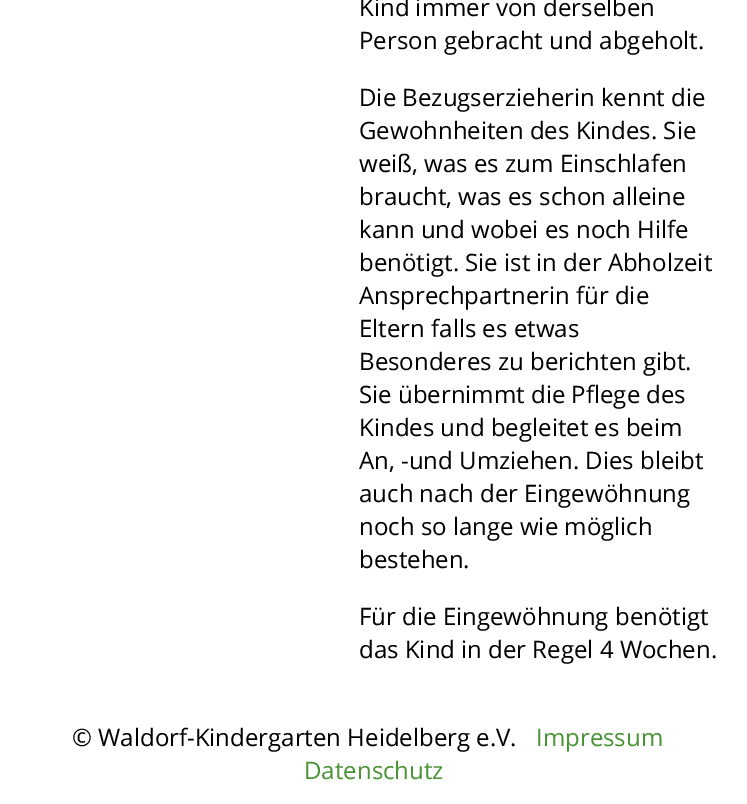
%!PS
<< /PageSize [747 804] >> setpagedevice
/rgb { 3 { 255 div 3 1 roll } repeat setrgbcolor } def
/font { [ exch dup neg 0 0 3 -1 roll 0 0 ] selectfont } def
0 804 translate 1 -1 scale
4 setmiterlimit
255 255 255 rgb
0 0 747 804 rectfill
/OpenSans-Regular 24 font
0 0 0 rgb
[
  [(Kind immer von derselben) 359 16]
  [(Person gebracht und abgeholt.) 359 49]
  [(Die Bezugserzieherin kennt die) 359 106]
  [(Gewohnheiten des Kindes. Sie) 359 139]
  [(weiß, was es zum Einschlafen) 359 172]
  [(braucht, was es schon alleine) 359 205]
  [(kann und wobei es noch Hilfe) 359 238]
  [(benötigt. Sie ist in der Abholzeit) 359 271]
  [(Ansprechpartnerin für die) 359 304]
  [(Eltern falls es etwas) 359 337]
  [(Besonderes zu berichten gibt.) 359 370]
  [(Sie übernimmt die Pflege des) 359 403]
  [(Kindes und begleitet es beim) 359 436]
  [(An, -und Umziehen. Dies bleibt) 359 469]
  [(auch nach der Eingewöhnung) 359 502]
  [(noch so lange wie möglich) 359 535]
  [(bestehen.) 359 568]
  [(Für die Eingewöhnung benötigt) 359 625]
  [(das Kind in der Regel 4 Wochen.) 359 658]
  [(© Waldorf-Kindergarten Heidelberg e.V.) 72 746]
] { aload pop moveto show } forall
73 148 52 rgb
536 746 moveto (Impressum) show
304 779 moveto (Datenschutz) show
showpage
